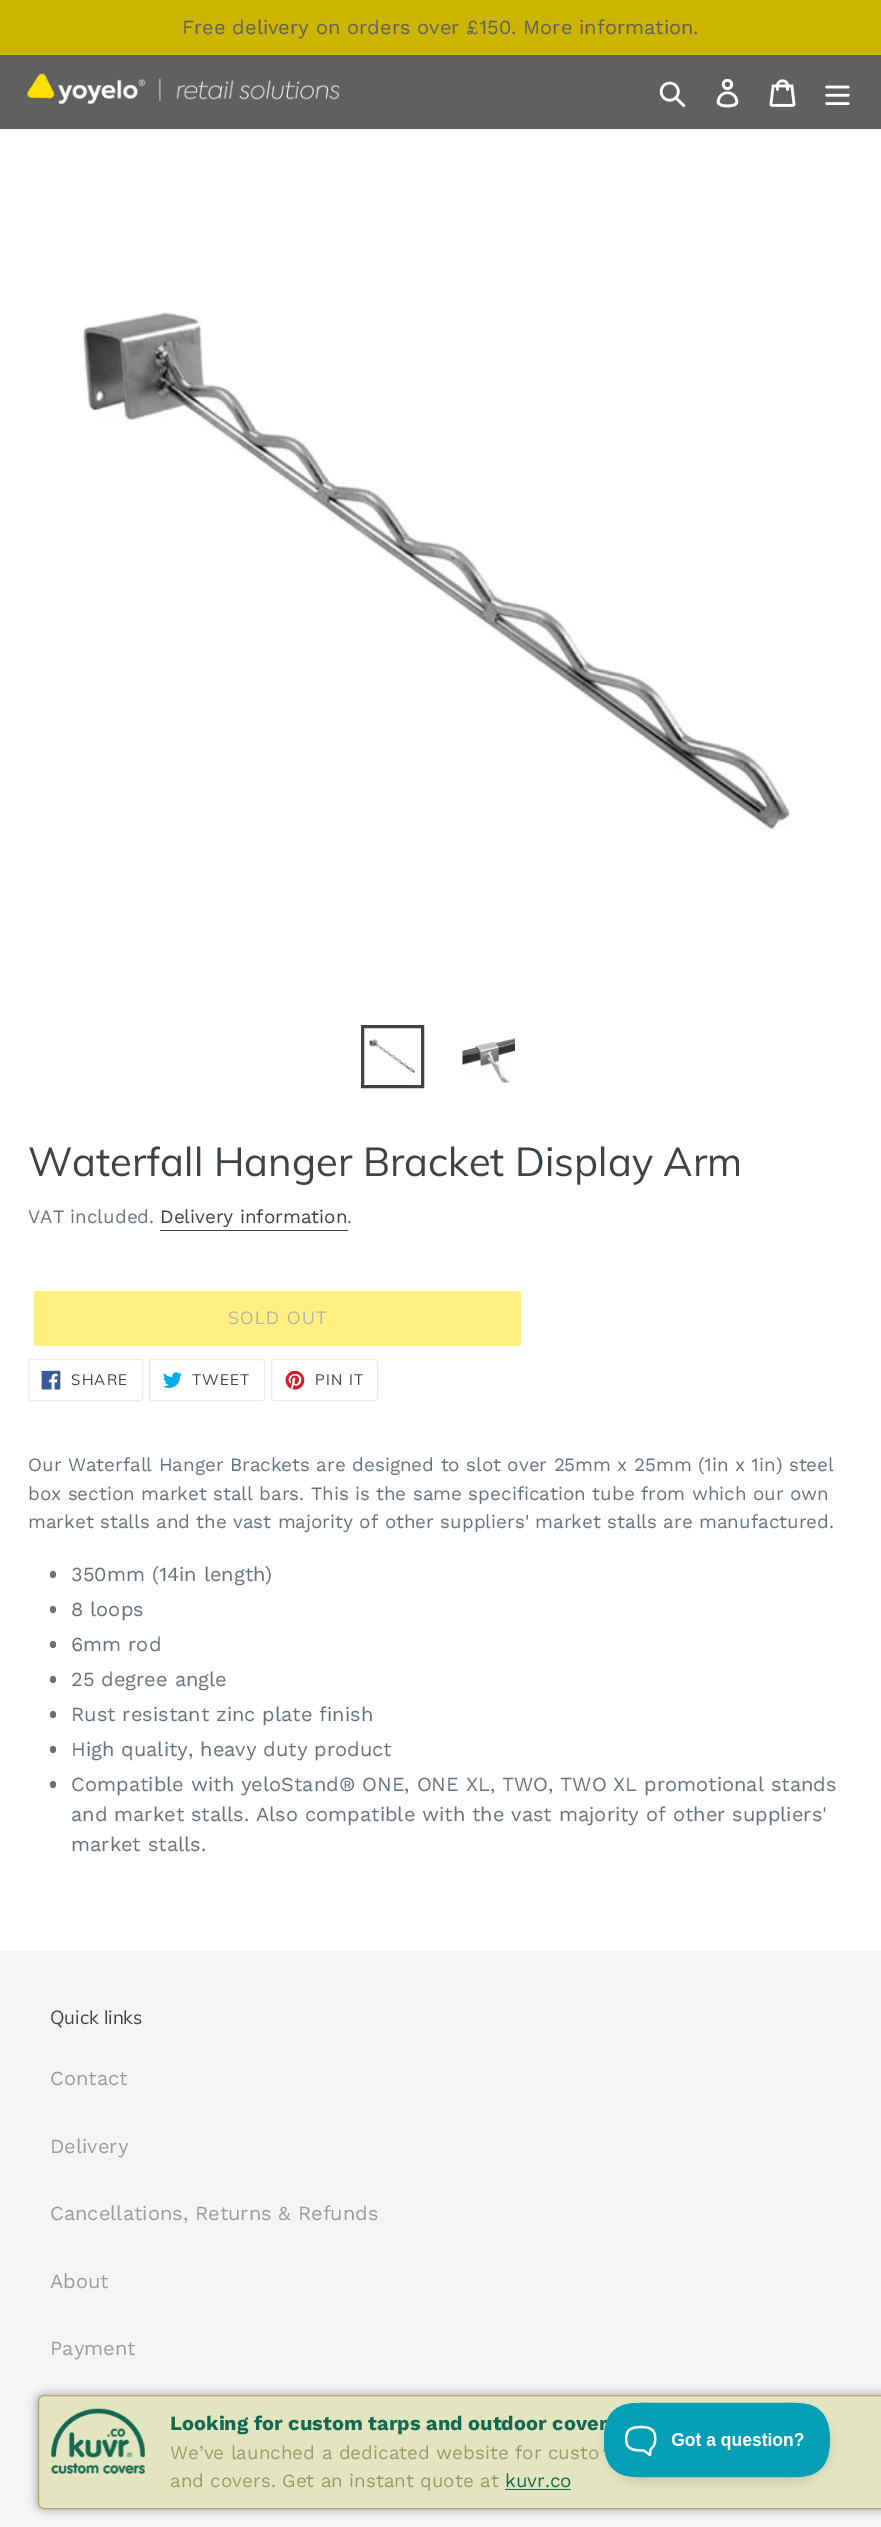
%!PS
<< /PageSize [881 2527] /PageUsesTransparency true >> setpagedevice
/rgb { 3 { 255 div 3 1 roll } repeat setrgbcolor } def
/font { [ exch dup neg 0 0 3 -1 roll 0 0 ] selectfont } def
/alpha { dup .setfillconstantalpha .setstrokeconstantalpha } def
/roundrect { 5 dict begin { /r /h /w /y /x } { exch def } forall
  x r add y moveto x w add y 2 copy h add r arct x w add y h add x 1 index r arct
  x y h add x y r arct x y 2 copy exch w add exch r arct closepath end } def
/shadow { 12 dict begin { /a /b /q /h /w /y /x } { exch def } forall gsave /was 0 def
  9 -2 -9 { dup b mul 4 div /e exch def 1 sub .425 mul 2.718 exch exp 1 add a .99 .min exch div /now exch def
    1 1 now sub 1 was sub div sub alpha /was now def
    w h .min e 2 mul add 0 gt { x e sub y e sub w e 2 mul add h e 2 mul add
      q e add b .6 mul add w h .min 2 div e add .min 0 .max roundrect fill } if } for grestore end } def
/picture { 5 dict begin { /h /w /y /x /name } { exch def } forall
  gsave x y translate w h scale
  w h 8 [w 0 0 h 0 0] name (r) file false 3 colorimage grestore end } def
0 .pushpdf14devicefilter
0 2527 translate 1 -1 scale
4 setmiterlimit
255 255 255 rgb
0 0 881 2527 rectfill
96 96 96 rgb
0 55 881 74 rectfill
204 180 0 rgb
0 0 881 55 rectfill
(img/1.rgb) 27 73 313 31 picture
(img/2.rgb) 659 81 27 27 picture
(img/3.rgb) 716 79 23 29 picture
(img/4.rgb) 769 79 27 28 picture
(img/5.rgb) 825 85 25 20 picture
245 245 245 rgb
0 1951 881 576 rectfill
92 92 92 rgb
36 2394 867 116 8 4.5 0.5 shadow
227 229 192 rgb
38.5 2395.5 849 113 5.5 roundrect gsave fill grestore
170 170 122 rgb
stroke
(img/6.rgb) 51 2408 94 66 picture
18 104 80 rgb
505 2489 66 1 rectfill
(img/7.rgb) 81 312 710 520 picture
61 66 70 rgb
3 setlinewidth
362.5 1026.5 60 60 rectstroke
(img/8.rgb) 369 1039 46 34 picture
(img/9.rgb) 462 1038 53 45 picture
160 1230 188 1 rectfill
255 240 128 rgb
34 1291 487 55 2.5 roundrect fill
232 233 235 rgb
1 setlinewidth
28.5 1359.5 114 41 2 roundrect stroke
(img/10.rgb) 41 1370 20 20 picture
149.5 1359.5 115 41 2 roundrect stroke
(img/11.rgb) 163 1372 19 16 picture
271.5 1359.5 106 41 2 roundrect stroke
(img/12.rgb) 285 1370 20 20 picture
105 114 123 rgb
50 1571 6 7 3 roundrect fill
50 1606 6 7 3 roundrect fill
50 1641 6 7 3 roundrect fill
50 1676 6 7 3 roundrect fill
50 1711 6 7 3 roundrect fill
50 1746 6 7 3 roundrect fill
50 1781 6 7 3 roundrect fill
0 0 0 rgb
604 2408 227 75 37.5 4.5 0.1 shadow
/WorkSans-Regular 20 font
96 96 96 rgb
182 34 moveto (Free delivery on orders over £150. More information.) show
/WorkSans-Bold 20 font
18 104 80 rgb
170 2430 moveto (Looking for custom tarps and outdoor cover) show
/WorkSans-Regular 18.75 font
153 153 107 rgb
170 2459 moveto (We’ve launched a dedicated website for custo) show
170 2487 moveto (and covers. Get an instant quote at) show
18 104 80 rgb
505 2487 moveto (kuvr.co) show
/Muli-Regular 40 font
61 66 70 rgb
28 1176 moveto (Waterfall Hanger Bracket Display Arm) show
/WorkSans-Regular 18.75 font
105 114 123 rgb
28 1223 moveto (VAT included.) show
61 66 70 rgb
160 1223 moveto (Delivery information) show
105 114 123 rgb
347 1223 moveto (.) show
/Muli-Regular 17.5 font
176 176 176 rgb
228 1324 moveto 1.5 0 (SOLD OUT) ashow
/Muli-Regular 15 font
61 66 70 rgb
71 1385 moveto 1.25 0 (SHARE) ashow
192 1385 moveto 1.25 0 (TWEET) ashow
315 1385 moveto 1.25 0 (PIN IT) ashow
/WorkSans-Regular 18.75 font
105 114 123 rgb
[
  [(Our Waterfall Hanger Brackets are designed to slot over 25mm x 25mm \(1in x 1in\) steel) 28 1471]
  [(box section market stall bars. This is the same specification tube from which our own) 28 1500]
  [(market stalls and the vast majority of other suppliers' market stalls are manufactured.) 28 1528]
] { aload pop moveto show } forall
/WorkSans-Regular 20 font
[
  [(350mm \(14in length\)) 71 1581]
  [(8 loops) 71 1616]
  [(6mm rod) 71 1651]
  [(25 degree angle) 71 1686]
  [(Rust resistant zinc plate finish) 71 1721]
  [(High quality, heavy duty product) 71 1756]
  [(Compatible with yeloStand® ONE, ONE XL, TWO, TWO XL promotional stands) 71 1791]
  [(and market stalls. Also compatible with the vast majority of other suppliers') 71 1821]
  [(market stalls.) 71 1851]
] { aload pop moveto show } forall
/Muli-Regular 18.75 font
61 66 70 rgb
50 2024 moveto (Quick links) show
/WorkSans-Regular 20 font
155 155 155 rgb
[
  [(Contact) 50 2085]
  [(Delivery) 50 2153]
  [(Cancellations, Returns & Refunds) 50 2220]
  [(About) 50 2288]
  [(Payment) 50 2355]
] { aload pop moveto show } forall
(img/13.rgb) 603 2402 227 76 picture
.poppdf14devicefilter showpage
